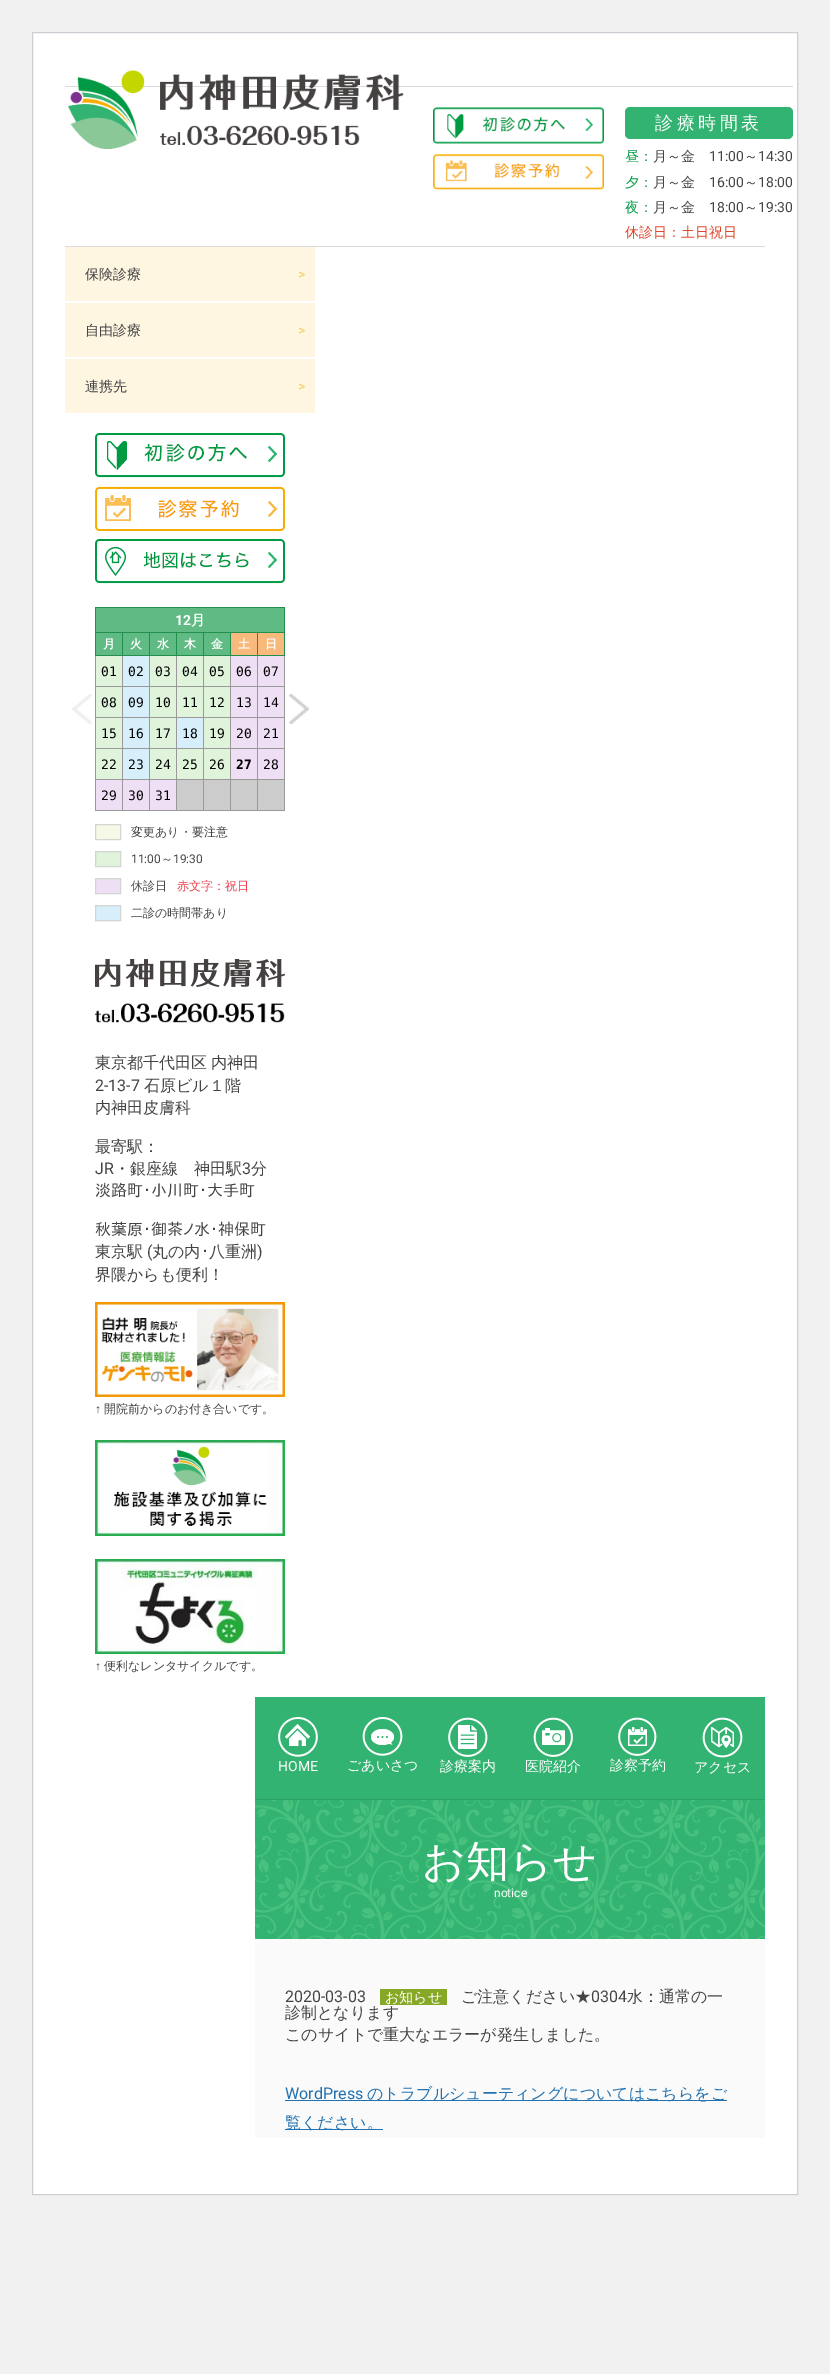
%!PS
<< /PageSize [830 2374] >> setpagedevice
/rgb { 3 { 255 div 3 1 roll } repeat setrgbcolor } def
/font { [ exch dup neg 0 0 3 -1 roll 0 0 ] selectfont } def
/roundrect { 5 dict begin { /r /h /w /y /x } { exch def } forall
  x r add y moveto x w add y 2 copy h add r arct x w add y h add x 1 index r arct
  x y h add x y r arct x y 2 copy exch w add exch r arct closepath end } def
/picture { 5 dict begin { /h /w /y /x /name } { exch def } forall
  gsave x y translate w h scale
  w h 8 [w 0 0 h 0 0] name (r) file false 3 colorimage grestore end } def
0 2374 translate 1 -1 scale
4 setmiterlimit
241 241 241 rgb
0 0 830 2374 rectfill
255 255 255 rgb
32.5 32.5 moveto 797.5 32.5 lineto 797.5 2194.5 lineto 32.5 2194.5 lineto closepath gsave fill grestore
204 208 212 rgb
stroke
218 218 218 rgb
65 86 728 1 rectfill
(img/1.rgb) 67 70 337 79 picture
(img/2.rgb) 433 107 171 37 picture
(img/3.rgb) 433 154 171 36 picture
51 179 113 rgb
625 107 168 32 5 roundrect fill
[
  [65 246 700 1 218 218 218]
  [65 247 250 54 255 246 226]
  [65 303 250 54 255 246 226]
  [65 359 250 54 255 246 226]
] { aload pop rgb rectfill } forall
(img/4.rgb) 95 433 190 45 picture
(img/5.rgb) 95 486 190 45 picture
(img/6.rgb) 95 539 190 45 picture
(img/7.rgb) 72 694 20 30 picture
[
  [96 608 188 24 96 186 132]
  [95 607 190 1 34 143 78]
  [257 632 28 1 34 143 78]
  [257 686 28 1 153 153 153]
  [257 717 28 1 153 153 153]
  [257 748 28 1 153 153 153]
  [257 779 28 1 153 153 153]
  [284 779 1 32 153 153 153]
  [284 748 1 32 153 153 153]
  [284 717 1 32 153 153 153]
  [284 655 1 63 153 153 153]
  [284 632 1 24 34 143 78]
  [284 607 1 26 34 143 78]
  [257 810 28 1 153 153 153]
  [257 779 1 32 153 153 153]
  [230 779 28 1 153 153 153]
  [257 748 1 32 153 153 153]
  [230 748 28 1 153 153 153]
  [257 717 1 32 153 153 153]
  [230 717 28 1 153 153 153]
  [257 686 1 32 153 153 153]
  [230 686 28 1 153 153 153]
  [257 655 1 32 153 153 153]
  [257 655 28 1 34 143 78]
  [257 632 1 24 34 143 78]
  [230 632 28 1 34 143 78]
  [230 810 28 1 153 153 153]
  [230 779 1 32 153 153 153]
  [203 779 28 1 153 153 153]
  [230 748 1 32 153 153 153]
  [203 748 28 1 153 153 153]
  [230 717 1 32 153 153 153]
  [203 717 28 1 153 153 153]
  [230 686 1 32 153 153 153]
  [203 686 28 1 153 153 153]
  [230 655 1 32 153 153 153]
  [230 655 28 1 34 143 78]
  [230 632 1 24 34 143 78]
  [203 632 28 1 34 143 78]
  [203 810 28 1 153 153 153]
  [203 779 1 32 153 153 153]
  [176 779 28 1 153 153 153]
  [203 748 1 32 153 153 153]
  [176 748 28 1 153 153 153]
  [203 717 1 32 153 153 153]
  [176 717 28 1 153 153 153]
  [203 686 1 32 153 153 153]
  [176 686 28 1 153 153 153]
  [203 655 1 32 153 153 153]
  [203 655 28 1 34 143 78]
  [203 632 1 24 34 143 78]
  [176 632 28 1 34 143 78]
  [176 810 28 1 153 153 153]
  [176 779 1 32 153 153 153]
  [149 779 28 1 153 153 153]
  [176 748 1 32 153 153 153]
  [149 748 28 1 153 153 153]
  [176 717 1 32 153 153 153]
  [149 717 28 1 153 153 153]
  [176 686 1 32 153 153 153]
  [149 686 28 1 153 153 153]
  [176 655 1 32 153 153 153]
  [176 655 28 1 34 143 78]
  [176 632 1 24 34 143 78]
  [149 632 28 1 34 143 78]
  [149 810 28 1 153 153 153]
  [149 779 1 32 153 153 153]
  [122 779 28 1 153 153 153]
  [149 748 1 32 153 153 153]
  [122 748 28 1 153 153 153]
  [149 717 1 32 153 153 153]
  [122 717 28 1 153 153 153]
  [149 686 1 32 153 153 153]
  [122 686 28 1 153 153 153]
  [149 655 1 32 153 153 153]
  [149 655 28 1 34 143 78]
  [149 632 1 24 34 143 78]
  [122 632 28 1 34 143 78]
  [122 810 28 1 153 153 153]
  [122 779 1 32 153 153 153]
  [95 779 28 1 153 153 153]
  [122 748 1 32 153 153 153]
  [95 748 28 1 153 153 153]
  [122 717 1 32 153 153 153]
  [95 717 28 1 153 153 153]
  [122 686 1 32 153 153 153]
  [95 686 28 1 153 153 153]
  [122 655 1 32 153 153 153]
  [122 655 28 1 34 143 78]
  [122 632 1 24 34 143 78]
  [95 632 28 1 34 143 78]
  [95 810 28 1 153 153 153]
  [95 779 1 32 153 153 153]
  [95 748 1 32 153 153 153]
  [95 717 1 32 153 153 153]
  [95 655 1 63 153 153 153]
  [95 655 28 1 34 143 78]
  [95 632 1 24 34 143 78]
  [95 607 1 26 34 143 78]
  [96 633 26 22 96 186 132]
  [123 633 26 22 96 186 132]
  [150 633 26 22 96 186 132]
  [177 633 26 22 96 186 132]
  [204 633 26 22 96 186 132]
  [231 633 26 22 247 185 124]
  [258 633 26 22 247 185 124]
  [96 656 26 30 224 244 220]
  [123 656 26 30 214 239 251]
  [150 656 26 30 224 244 220]
  [177 656 26 30 224 244 220]
  [204 656 26 30 224 244 220]
  [231 656 26 30 239 223 244]
  [258 656 26 30 239 223 244]
  [96 687 26 30 224 244 220]
  [123 687 26 30 214 239 251]
  [150 687 26 30 224 244 220]
  [177 687 26 30 224 244 220]
  [204 687 26 30 224 244 220]
  [231 687 26 30 239 223 244]
  [258 687 26 30 239 223 244]
  [96 718 26 30 224 244 220]
  [123 718 26 30 214 239 251]
  [150 718 26 30 224 244 220]
  [177 718 26 30 214 239 251]
  [204 718 26 30 224 244 220]
  [231 718 26 30 239 223 244]
  [258 718 26 30 239 223 244]
  [96 749 26 30 224 244 220]
  [123 749 26 30 214 239 251]
  [150 749 26 30 224 244 220]
  [177 749 26 30 224 244 220]
  [204 749 26 30 224 244 220]
  [231 749 26 30 239 223 244]
  [258 749 26 30 239 223 244]
  [96 780 26 30 239 223 244]
  [123 780 26 30 239 223 244]
  [150 780 26 30 239 223 244]
  [177 780 26 30 204 204 204]
  [204 780 26 30 204 204 204]
  [231 780 26 30 204 204 204]
  [258 780 26 30 204 204 204]
] { aload pop rgb rectfill } forall
(img/8.rgb) 289 694 20 30 picture
245 249 229 rgb
95.5 824.5 moveto 120.5 824.5 lineto 120.5 839.5 lineto 95.5 839.5 lineto closepath gsave fill grestore
211 213 209 rgb
stroke
224 244 220 rgb
95.5 851.5 moveto 120.5 851.5 lineto 120.5 866.5 lineto 95.5 866.5 lineto closepath gsave fill grestore
211 213 209 rgb
stroke
239 223 244 rgb
95.5 878.5 moveto 120.5 878.5 lineto 120.5 893.5 lineto 95.5 893.5 lineto closepath gsave fill grestore
211 213 209 rgb
stroke
214 239 251 rgb
95.5 905.5 moveto 120.5 905.5 lineto 120.5 920.5 lineto 95.5 920.5 lineto closepath gsave fill grestore
211 213 209 rgb
stroke
(img/9.rgb) 95 959 190 28 picture
(img/10.rgb) 95 1003 190 20 picture
(img/11.rgb) 95 1302 190 95 picture
(img/12.rgb) 95 1440 190 96 picture
(img/13.rgb) 95 1559 190 95 picture
250 250 250 rgb
255 1939 510 199 rectfill
51 179 113 rgb
255 1697 510 102 rectfill
(img/14.rgb) 278 1717 40 40 picture
(img/15.rgb) 362 1717 41 39 picture
(img/16.rgb) 448 1717 40 40 picture
(img/17.rgb) 533 1717 40 40 picture
(img/18.rgb) 618 1717 39 39 picture
(img/19.rgb) 702 1717 41 41 picture
(img/20.rgb) 255 1800 510 139 picture
[
  [255 1799 510 1 43 162 101]
  [380 1989 67 16 135 167 38]
  [285 2100 442 1 34 113 177]
  [285 2129 98 1 34 113 177]
] { aload pop rgb rectfill } forall
/WenQuanYiZenHei-Medium 18 font
255 255 255 rgb
655 129 moveto 3.5 0 (診療時間表) ashow
/WenQuanYiZenHei-Medium 14 font
0 153 68 rgb
625 161 moveto (昼：) show
68 68 68 rgb
653 161 moveto (月～金) show
/Roboto-Regular 14 font
709 161 moveto (11:00) show
/WenQuanYiZenHei-Medium 14 font
744 161 moveto (～) show
/Roboto-Regular 14 font
758 161 moveto (14:30) show
/WenQuanYiZenHei-Medium 14 font
0 153 68 rgb
625 187 moveto (夕：) show
68 68 68 rgb
653 187 moveto (月～金) show
/Roboto-Regular 14 font
709 187 moveto (16:00) show
/WenQuanYiZenHei-Medium 14 font
744 187 moveto (～) show
/Roboto-Regular 14 font
758 187 moveto (18:00) show
/WenQuanYiZenHei-Medium 14 font
0 153 68 rgb
625 212 moveto (夜：) show
68 68 68 rgb
653 212 moveto (月～金) show
/Roboto-Regular 14 font
709 212 moveto (18:00) show
/WenQuanYiZenHei-Medium 14 font
744 212 moveto (～) show
/Roboto-Regular 14 font
758 212 moveto (19:30) show
/WenQuanYiZenHei-Medium 14 font
225 72 41 rgb
625 237 moveto (休診日：土日祝日) show
68 68 68 rgb
85 279 moveto (保険診療) show
/Roboto-Regular 14 font
248 202 94 rgb
298 279 moveto (>) show
/WenQuanYiZenHei-Medium 14 font
68 68 68 rgb
85 335 moveto (自由診療) show
/Roboto-Regular 14 font
248 202 94 rgb
298 335 moveto (>) show
/WenQuanYiZenHei-Medium 14 font
68 68 68 rgb
85 391 moveto (連携先) show
/Roboto-Regular 14 font
248 202 94 rgb
298 391 moveto (>) show
/Roboto-Bold 14 font
255 255 255 rgb
175 625 moveto (12) show
/WenQuanYiZenHei-Bold 14 font
191 625 moveto (月) show
/WenQuanYiZenHei-Bold 12 font
[
  [(月) 103 648]
  [(火) 130 648]
  [(水) 157 648]
  [(木) 184 648]
  [(金) 211 648]
  [(土) 238 648]
  [(日) 265 648]
] { aload pop moveto show } forall
/DejaVuSansMono-Regular 13 font
0 0 0 rgb
[
  [(01) 101 676]
  [(02) 128 676]
  [(03) 155 676]
  [(04) 182 676]
  [(05) 209 676]
  [(06) 236 676]
  [(07) 263 676]
  [(08) 101 707]
  [(09) 128 707]
  [(10) 155 707]
  [(11) 182 707]
  [(12) 209 707]
  [(13) 236 707]
  [(14) 263 707]
  [(15) 101 738]
  [(16) 128 738]
  [(17) 155 738]
  [(18) 182 738]
  [(19) 209 738]
  [(20) 236 738]
  [(21) 263 738]
  [(22) 101 769]
  [(23) 128 769]
  [(24) 155 769]
  [(25) 182 769]
  [(26) 209 769]
] { aload pop moveto show } forall
/DejaVuSansMono-Bold 13 font
236 769 moveto (27) show
/DejaVuSansMono-Regular 13 font
[
  [(28) 263 769]
  [(29) 101 800]
  [(30) 128 800]
  [(31) 155 800]
] { aload pop moveto show } forall
/WenQuanYiZenHei-Medium 12 font
68 68 68 rgb
131 836 moveto (変更あり・要注意) show
/Roboto-Regular 12 font
131 863 moveto (11:00) show
/WenQuanYiZenHei-Medium 12 font
161 863 moveto (～) show
/Roboto-Regular 12 font
173 863 moveto (19:30) show
/WenQuanYiZenHei-Medium 12 font
131 890 moveto (休診日) show
236 64 77 rgb
177 890 moveto (赤文字：祝日) show
68 68 68 rgb
131 917 moveto (二診の時間帯あり) show
/WenQuanYiZenHei-Medium 16 font
95 1068 moveto -1 0 32 (東京都千代田区 内神田) widthshow
/Roboto-Regular 16 font
95 1091 moveto (2-13-7) show
/WenQuanYiZenHei-Medium 16 font
[
  [(石原ビル１階) 144 1091]
  [(内神田皮膚科) 95 1113]
  [(最寄駅：) 95 1152]
] { aload pop moveto show } forall
/Roboto-Regular 16 font
95 1174 moveto (JR) show
/WenQuanYiZenHei-Medium 16 font
114 1174 moveto (・銀座線　神田駅) show
/Roboto-Regular 16 font
242 1174 moveto (3) show
/WenQuanYiZenHei-Medium 16 font
251 1174 moveto (分) show
/IPAPGothic-Regular 16 font
95 1196 moveto (淡路町･小川町･大手町) show
95 1235 moveto (秋葉原･御茶ノ水･神保町) show
/WenQuanYiZenHei-Medium 16 font
95 1257 moveto (東京駅) show
/Roboto-Regular 16 font
147 1257 moveto (\() show
/WenQuanYiZenHei-Medium 16 font
152 1257 moveto (丸の内) show
/IPAPGothic-Regular 16 font
201 1257 moveto (･) show
/WenQuanYiZenHei-Medium 16 font
209 1257 moveto (八重洲) show
/Roboto-Regular 16 font
257 1257 moveto (\)) show
/WenQuanYiZenHei-Medium 16 font
95 1280 moveto (界隈からも便利！) show
/LiberationSans-Regular 12 font
95 1413 moveto (↑) show
/WenQuanYiZenHei-Medium 12 font
104 1413 moveto (開院前からのお付き合いです。) show
/LiberationSans-Regular 12 font
95 1670 moveto (↑) show
/WenQuanYiZenHei-Medium 12 font
104 1670 moveto (便利なレンタサイクルです。) show
/Roboto-Regular 14 font
255 255 255 rgb
278 1771 moveto (HOME) show
/WenQuanYiZenHei-Medium 14 font
[
  [(ごあいさつ) 347 1770]
  [(診療案内) 440 1771]
  [(医院紹介) 525 1771]
  [(診察予約) 610 1770]
  [(アクセス) 694 1772]
] { aload pop moveto show } forall
/WenQuanYiZenHei-Medium 43 font
422 1876 moveto (お知らせ) show
/Roboto-Regular 12 font
494 1897 moveto (notice) show
/Roboto-Regular 16 font
68 68 68 rgb
285 2002 moveto (2020-03-03) show
/WenQuanYiZenHei-Medium 14 font
255 255 255 rgb
385 2002 moveto (お知らせ) show
/WenQuanYiZenHei-Medium 16 font
68 68 68 rgb
461 2002 moveto (ご注意ください★) show
/Roboto-Regular 16 font
591 2002 moveto (0304) show
/WenQuanYiZenHei-Medium 16 font
[
  [(水：通常の一) 627 2002]
  [(診制となります) 285 2018]
  [(このサイトで重大なエラーが発生しました。) 285 2040]
] { aload pop moveto show } forall
/Roboto-Regular 16 font
34 113 177 rgb
285 2099 moveto (WordPress) show
/WenQuanYiZenHei-Medium 16 font
367 2099 moveto (のトラブルシューティングについてはこちらをご) show
285 2128 moveto (覧ください。) show
showpage
